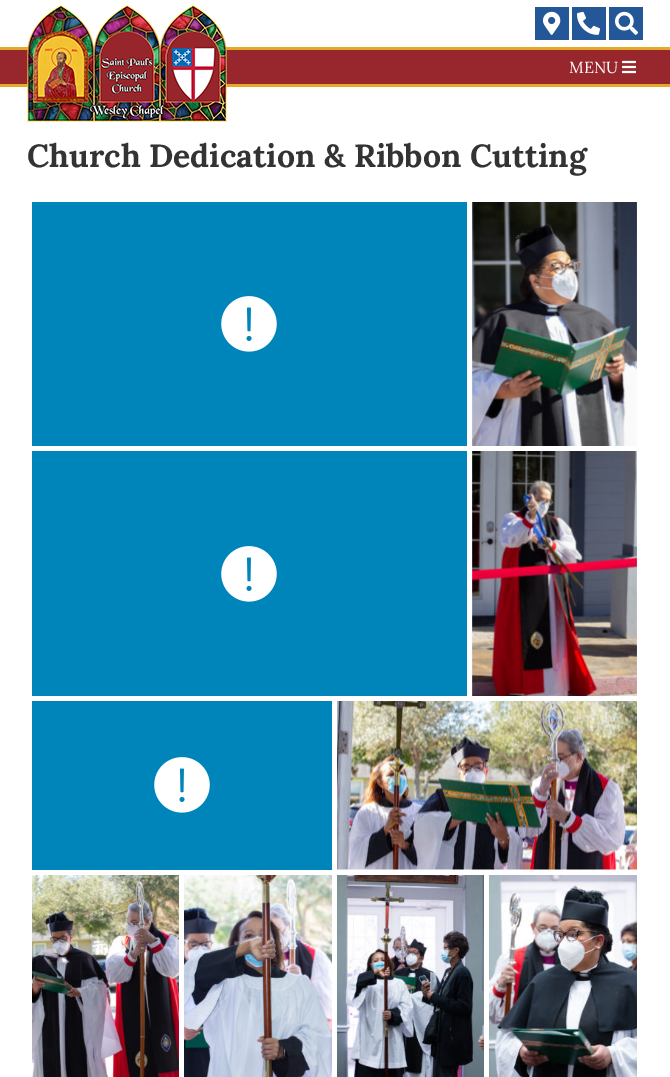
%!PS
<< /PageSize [670 1077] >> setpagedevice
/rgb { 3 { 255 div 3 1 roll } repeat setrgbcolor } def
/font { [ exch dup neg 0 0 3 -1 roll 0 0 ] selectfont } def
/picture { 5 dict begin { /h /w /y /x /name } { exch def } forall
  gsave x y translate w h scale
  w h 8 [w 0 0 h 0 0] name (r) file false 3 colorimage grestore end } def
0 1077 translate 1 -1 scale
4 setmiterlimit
255 255 255 rgb
0 0 670 1077 rectfill
[
  [0 50 670 34 152 39 45]
  [0 47 670 3 229 169 40]
  [0 84 670 3 229 169 40]
] { aload pop rgb rectfill } forall
(img/1.rgb) 27 5 200 117 picture
36 87 152 rgb
535 7 34 33 rectfill
(img/2.rgb) 543 11 18 24 picture
572 7 34 33 rectfill
(img/3.rgb) 577 11 23 24 picture
609 7 34 33 rectfill
(img/4.rgb) 615 11 23 24 picture
(img/5.rgb) 622 60 14 14 picture
0 133 186 rgb
32 202 435 244 rectfill
(img/6.rgb) 221 296 56 56 picture
(img/7.rgb) 472 202 165 244 picture
32 451 435 245 rectfill
(img/6.rgb) 221 546 56 56 picture
(img/8.rgb) 472 451 165 245 picture
32 701 300 169 rectfill
(img/6.rgb) 154 757 56 56 picture
(img/9.rgb) 337 701 300 169 picture
(img/10.rgb) 32 875 147 202 picture
(img/11.rgb) 184 875 148 202 picture
(img/12.rgb) 337 875 147 202 picture
(img/13.rgb) 489 875 148 202 picture
/Lora-Regular 16 font
255 255 255 rgb
569 73 moveto (MENU) show
/Lora-Bold 32 font
51 51 51 rgb
27 167 moveto (Church Dedication & Ribbon Cutting) show
showpage
